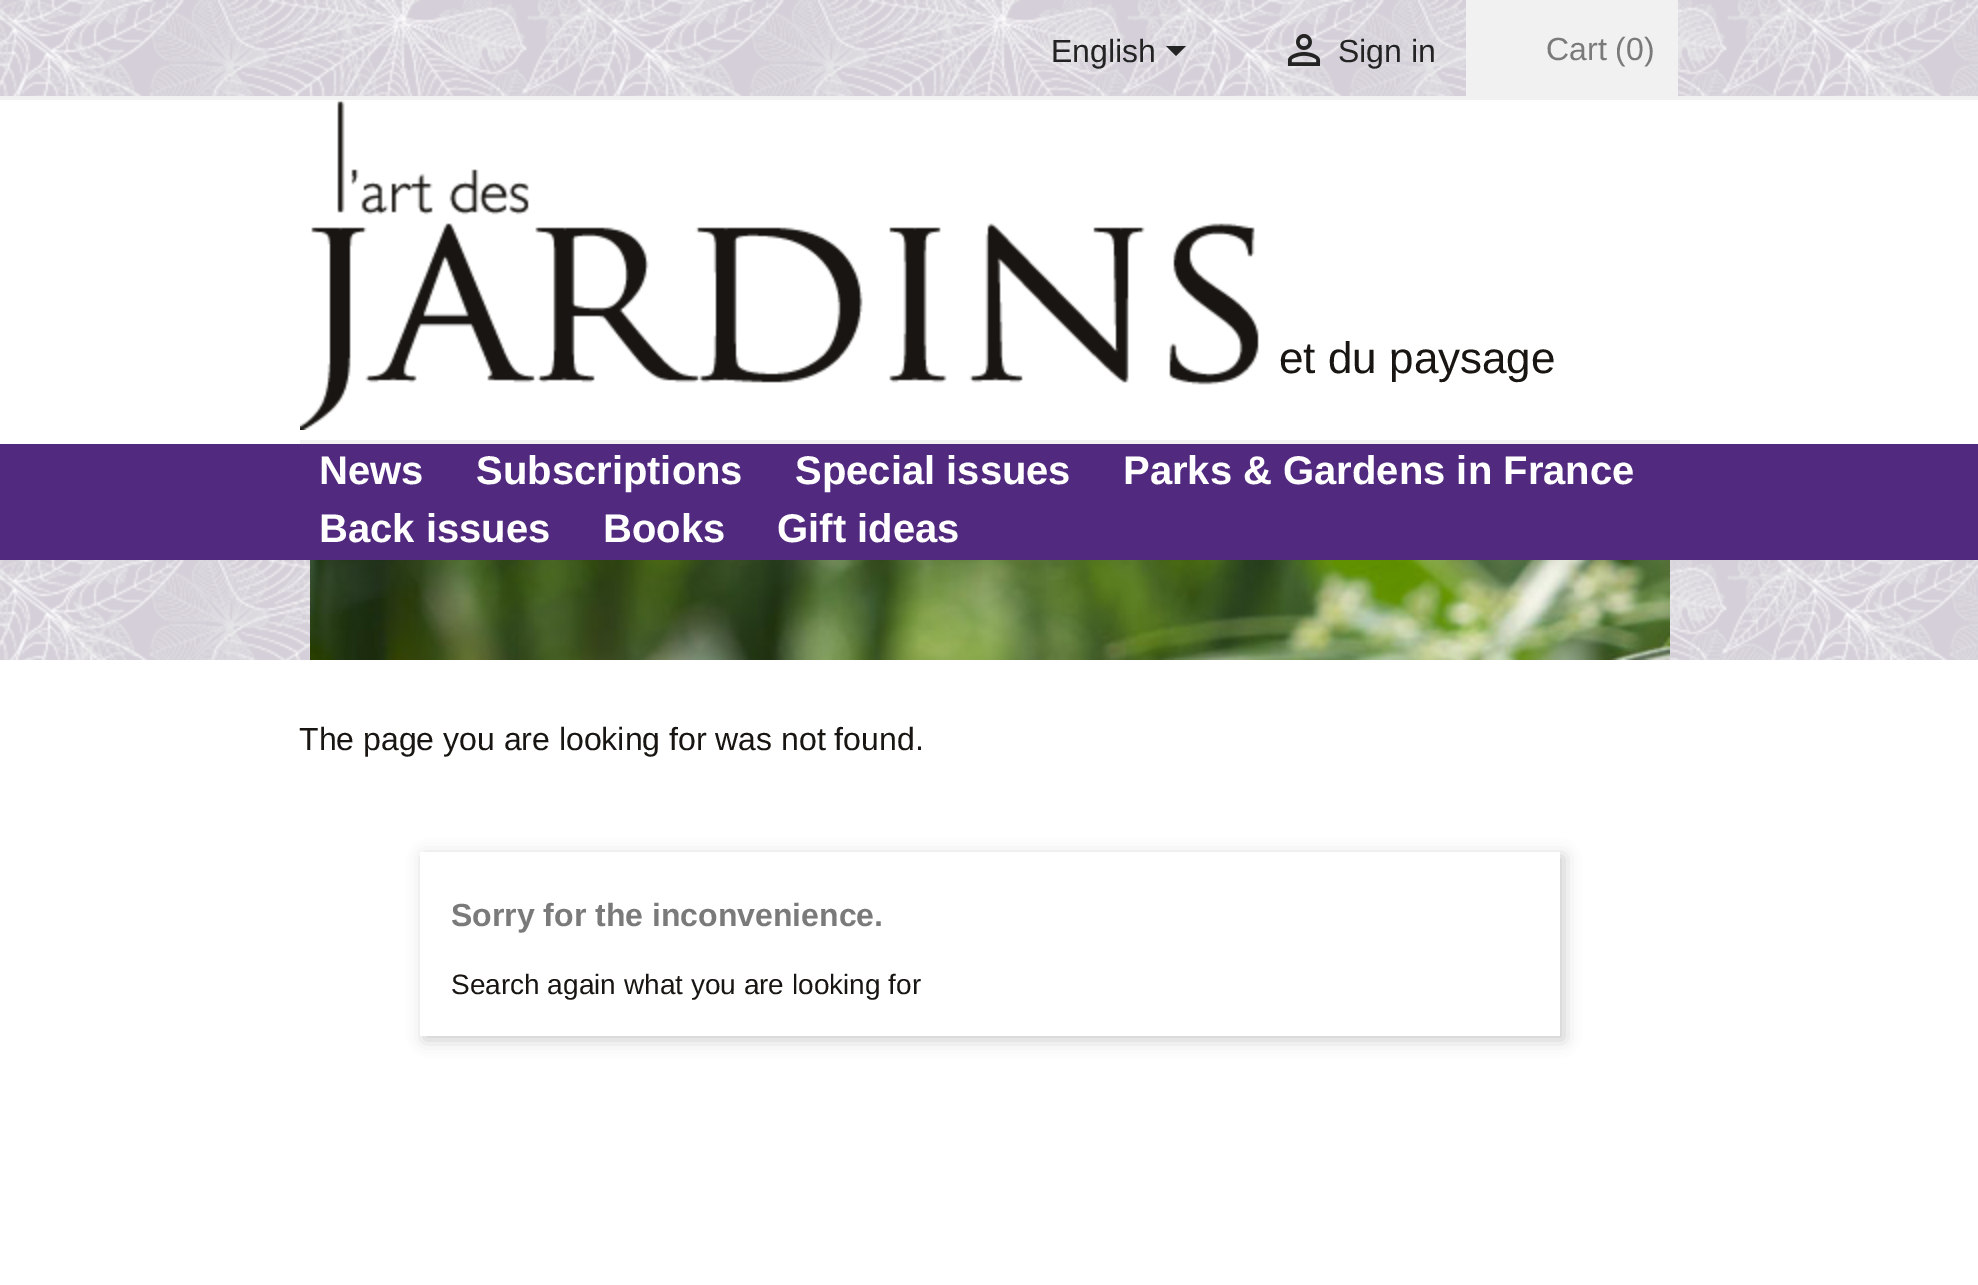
%!PS
<< /PageSize [1978 1285] /PageUsesTransparency true >> setpagedevice
/rgb { 3 { 255 div 3 1 roll } repeat setrgbcolor } def
/font { [ exch dup neg 0 0 3 -1 roll 0 0 ] selectfont } def
/alpha { dup .setfillconstantalpha .setstrokeconstantalpha } def
/roundrect { 5 dict begin { /r /h /w /y /x } { exch def } forall
  x r add y moveto x w add y 2 copy h add r arct x w add y h add x 1 index r arct
  x y h add x y r arct x y 2 copy exch w add exch r arct closepath end } def
/shadow { 12 dict begin { /a /b /q /h /w /y /x } { exch def } forall gsave /was 0 def
  9 -2 -9 { dup b mul 4 div /e exch def 1 sub .425 mul 2.718 exch exp 1 add a .99 .min exch div /now exch def
    1 1 now sub 1 was sub div sub alpha /was now def
    w h .min e 2 mul add 0 gt { x e sub y e sub w e 2 mul add h e 2 mul add
      q e add b .6 mul add w h .min 2 div e add .min 0 .max roundrect fill } if } for grestore end } def
/picture { 5 dict begin { /h /w /y /x /name } { exch def } forall
  gsave x y translate w h scale
  w h 8 [w 0 0 h 0 0] name (r) file false 3 colorimage grestore end } def
0 .pushpdf14devicefilter
0 1285 translate 1 -1 scale
4 setmiterlimit
255 255 255 rgb
0 0 1978 1285 rectfill
212 207 216 rgb
0 0 1978 96 rectfill
(img/1.rgb) 0 0 1978 96 picture
241 241 241 rgb
0 96 1978 4 rectfill
35 35 35 rgb
1166 46 moveto 1186 46 lineto 1176 56 lineto closepath fill
(img/2.rgb) 1287 34 34 32 picture
241 241 241 rgb
1466 0 212 96 rectfill
(img/3.rgb) 300 100 959 330 picture
[
  [300 440 1380 4 241 241 241]
  [0 444 1978 116 81 42 128]
  [0 560 1978 100 212 207 216]
] { aload pop rgb rectfill } forall
(img/4.rgb) 0 560 1978 100 picture
(img/5.rgb) 310 560 1360 100 picture
gsave
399 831 moveto 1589 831 lineto 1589 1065 lineto 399 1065 lineto closepath 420 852 moveto 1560 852 lineto 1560 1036 lineto 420 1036 lineto closepath eoclip newpath
0 0 0 rgb
424 856 1140 184 0 8 0.2 shadow
grestore
/LiberationSans-Regular 32 font
35 35 35 rgb
1051 62 moveto (English) show
1338 62 moveto (Sign in) show
122 122 122 rgb
1546 60 moveto (Cart \(0\)) show
/LiberationSans-Regular 44 font
24 21 18 rgb
1279 373 moveto (et du paysage) show
/LiberationSans-Bold 40 font
255 255 255 rgb
[
  [(News) 319 484]
  [(Subscriptions) 476 484]
  [(Special issues) 795 484]
  [(Parks & Gardens in France) 1123 484]
  [(Back issues) 319 542]
  [(Books) 603 542]
  [(Gift ideas) 777 542]
] { aload pop moveto show } forall
/LiberationSans-Regular 32 font
24 21 18 rgb
299 750 moveto (The page you are looking for was not found.) show
/LiberationSans-Bold 32 font
122 122 122 rgb
451 926 moveto (Sorry for the inconvenience.) show
/LiberationSans-Regular 28 font
24 21 18 rgb
451 994 moveto (Search again what you are looking for) show
.poppdf14devicefilter showpage
